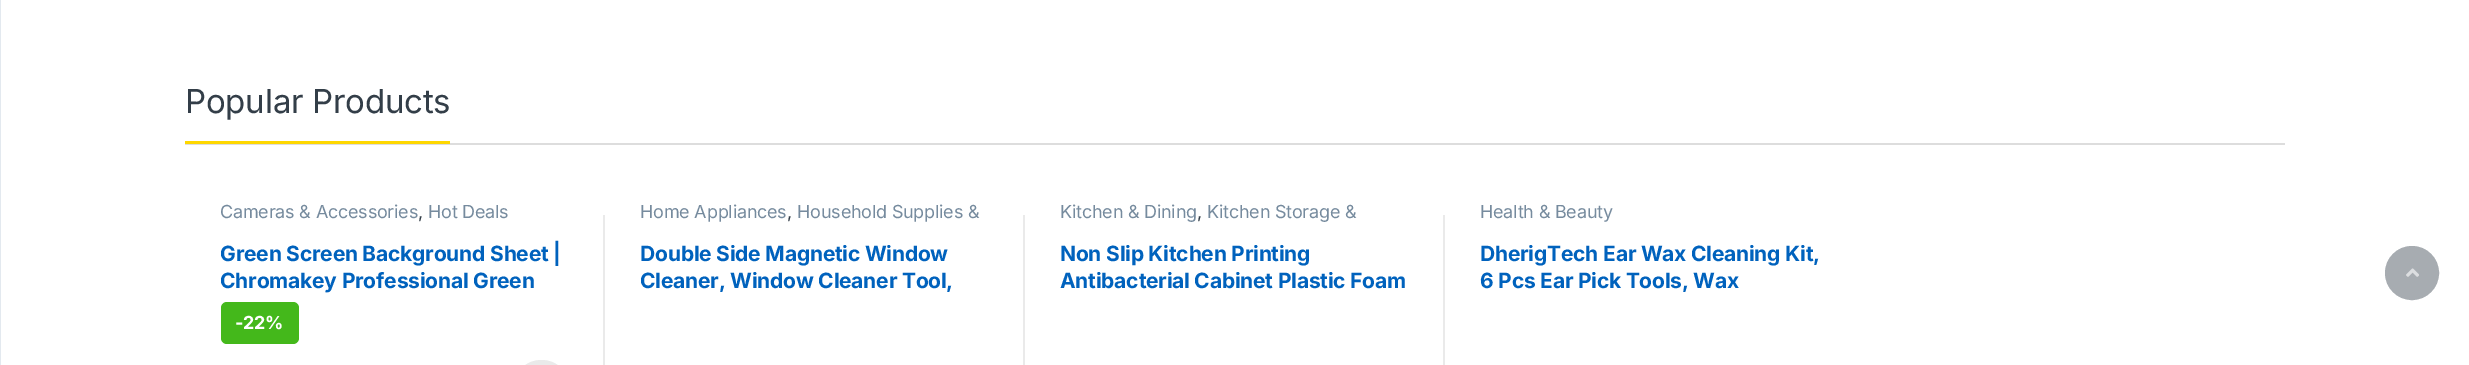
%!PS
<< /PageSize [2469 365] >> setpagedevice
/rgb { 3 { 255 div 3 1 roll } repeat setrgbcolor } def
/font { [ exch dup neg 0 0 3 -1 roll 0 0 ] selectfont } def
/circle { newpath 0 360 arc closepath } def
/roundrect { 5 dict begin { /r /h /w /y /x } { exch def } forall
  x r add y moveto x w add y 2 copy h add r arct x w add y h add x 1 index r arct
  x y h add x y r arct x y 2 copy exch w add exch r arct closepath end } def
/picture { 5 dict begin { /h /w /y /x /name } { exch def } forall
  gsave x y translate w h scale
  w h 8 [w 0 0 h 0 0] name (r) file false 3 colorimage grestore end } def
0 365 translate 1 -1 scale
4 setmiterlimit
255 255 255 rgb
0 0 2469 365 rectfill
[
  [0 0 1 365 227 233 239]
  [185 143 2100 2 221 221 221]
  [185 141 265 3 254 215 0]
] { aload pop rgb rectfill } forall
68 184 27 rgb
221 302 78 42 6 roundrect fill
234 234 234 rgb
541.5 360 moveto 556.5 360 568.5 371.5 568.5 385.5 curveto 568.5 399.5 556.5 411 541.5 411 curveto 526.5 411 514.5 399.5 514.5 385.5 curveto 514.5 371.5 526.5 360 541.5 360 curveto closepath fill
[
  [603 215 2 150 234 234 234]
  [1023 215 2 150 234 234 234]
  [1443 215 2 150 234 234 234]
] { aload pop rgb rectfill } forall
167 172 177 rgb
2412 273 26 circle gsave fill grestore
2 setlinewidth
stroke
(img/1.rgb) 2406 268 13 9 picture
/Inter-Regular 33 font
51 62 72 rgb
185 113 moveto -0.2 0 (Popular Products) ashow
/Inter-Regular 18 font
118 139 158 rgb
220 218 moveto -0.2 0 (Cameras & Accessories) ashow
51 62 72 rgb
418 218 moveto -0.2 0 (,) ashow
118 139 158 rgb
428 218 moveto -0.2 0 (Hot Deals) ashow
/Inter-Bold 21 font
0 98 189 rgb
220 261 moveto -0.2 0 (Green Screen Background Sheet |) ashow
220 288 moveto -0.2 0 (Chromakey Professional Green) ashow
/Inter-Bold 18 font
255 255 255 rgb
235 329 moveto -0.2 0 (-22%) ashow
/Inter-Regular 18 font
118 139 158 rgb
640 218 moveto -0.2 0 (Home Appliances) ashow
51 62 72 rgb
787 218 moveto -0.2 0 (,) ashow
118 139 158 rgb
797 218 moveto -0.2 0 (Household Supplies &) ashow
/Inter-Bold 21 font
0 98 189 rgb
640 261 moveto -0.2 0 (Double Side Magnetic Window) ashow
640 288 moveto -0.2 0 (Cleaner, Window Cleaner Tool,) ashow
/Inter-Regular 18 font
118 139 158 rgb
1060 218 moveto -0.2 0 (Kitchen & Dining) ashow
51 62 72 rgb
1197 218 moveto -0.2 0 (,) ashow
118 139 158 rgb
1207 218 moveto -0.2 0 (Kitchen Storage &) ashow
/Inter-Bold 21 font
0 98 189 rgb
1060 261 moveto -0.2 0 (Non Slip Kitchen Printing) ashow
1060 288 moveto -0.2 0 (Antibacterial Cabinet Plastic Foam) ashow
/Inter-Regular 18 font
118 139 158 rgb
1480 218 moveto -0.2 0 (Health & Beauty) ashow
/Inter-Bold 21 font
0 98 189 rgb
1480 261 moveto -0.2 0 (DherigTech Ear Wax Cleaning Kit,) ashow
1480 288 moveto -0.2 0 (6 Pcs Ear Pick Tools, Wax) ashow
showpage
